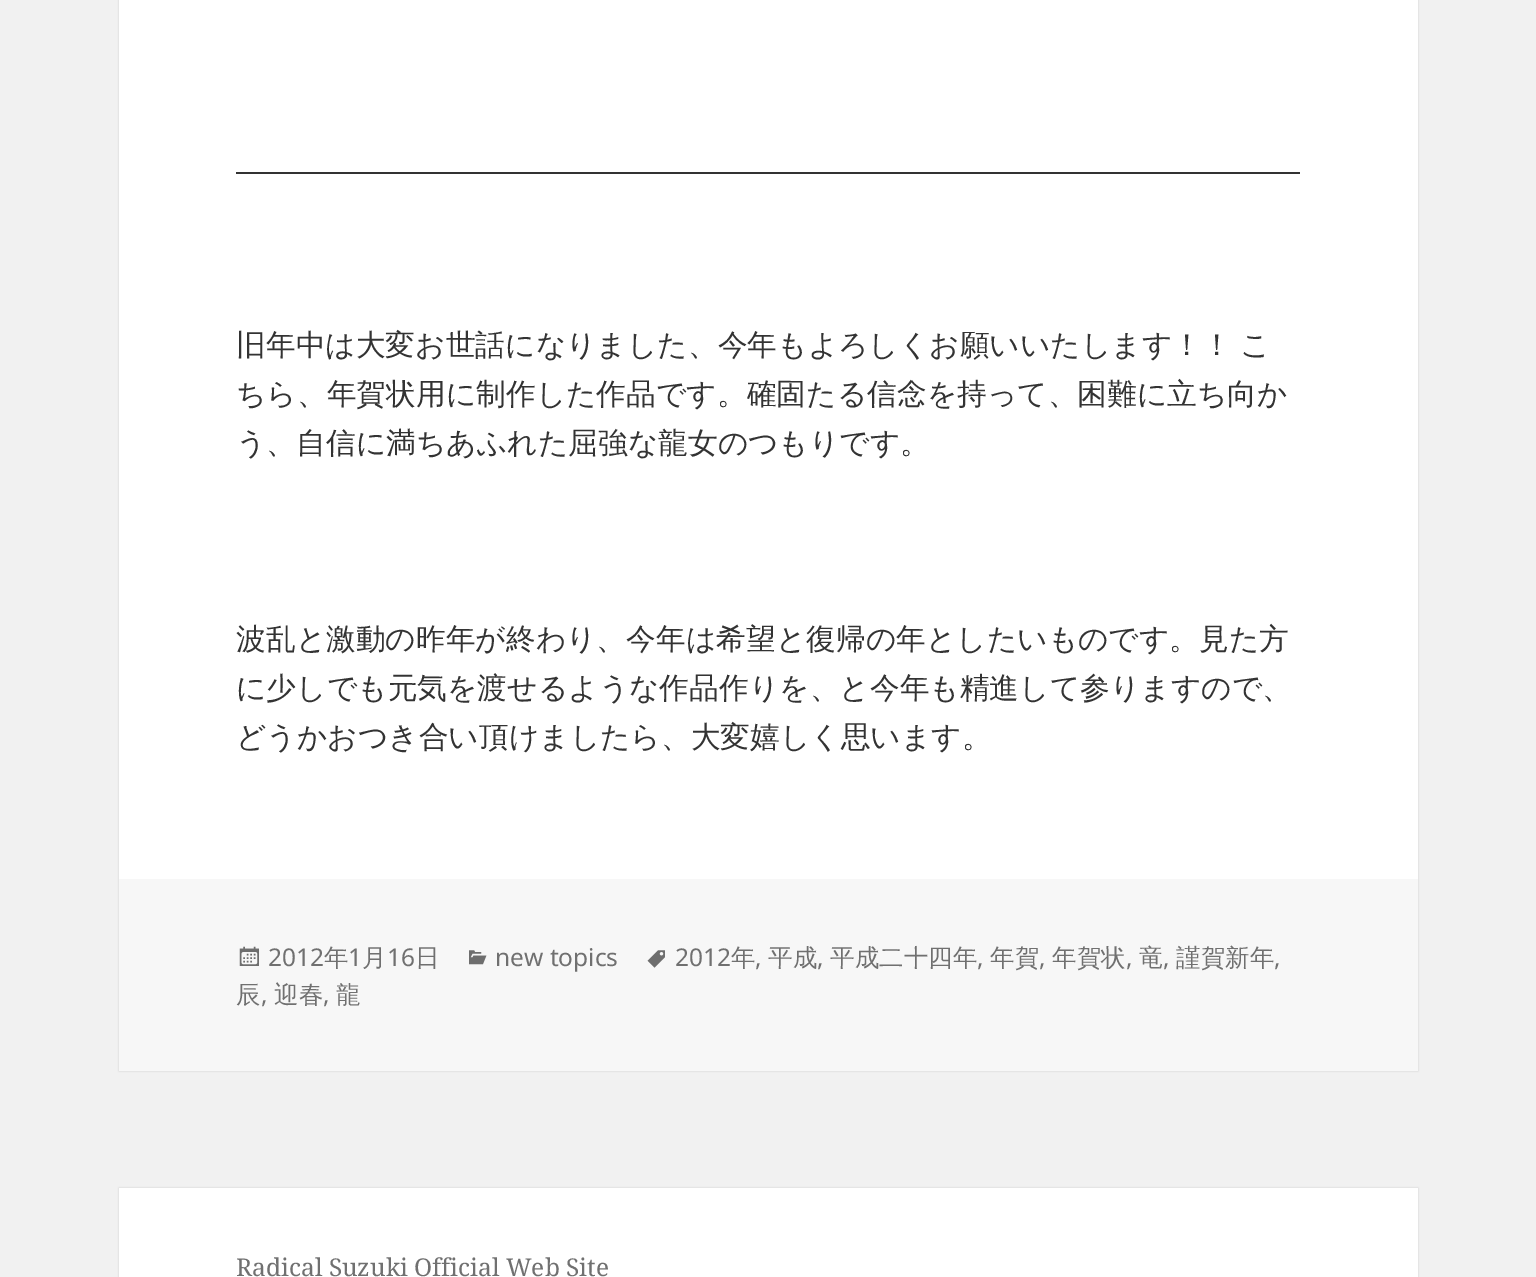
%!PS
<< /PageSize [1536 1277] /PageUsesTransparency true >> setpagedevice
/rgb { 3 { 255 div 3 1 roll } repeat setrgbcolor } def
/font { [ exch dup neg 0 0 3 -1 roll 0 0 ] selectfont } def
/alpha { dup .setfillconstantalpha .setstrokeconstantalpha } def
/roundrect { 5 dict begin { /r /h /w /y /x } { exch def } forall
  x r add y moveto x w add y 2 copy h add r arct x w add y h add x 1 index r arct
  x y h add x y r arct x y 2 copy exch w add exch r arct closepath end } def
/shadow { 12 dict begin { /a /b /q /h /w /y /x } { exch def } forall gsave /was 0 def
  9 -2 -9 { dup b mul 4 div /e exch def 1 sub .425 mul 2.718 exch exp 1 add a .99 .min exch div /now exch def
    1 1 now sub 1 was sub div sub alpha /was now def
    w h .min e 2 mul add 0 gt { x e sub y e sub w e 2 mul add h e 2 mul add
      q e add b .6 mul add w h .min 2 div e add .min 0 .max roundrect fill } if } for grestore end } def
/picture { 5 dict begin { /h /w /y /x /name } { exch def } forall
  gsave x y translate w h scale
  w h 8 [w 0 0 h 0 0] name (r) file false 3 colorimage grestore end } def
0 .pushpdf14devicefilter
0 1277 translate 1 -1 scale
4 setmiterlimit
241 241 241 rgb
0 0 1536 1277 rectfill
0 0 0 rgb
119 -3 1299 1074 0 1 0.15 shadow
[
  [119 0 1299 879 255 255 255]
  [236 172 1064 2 51 51 51]
  [119 879 1299 192 247 247 247]
] { aload pop rgb rectfill } forall
(img/1.rgb) 647 950 18 18 picture
(img/2.rgb) 239 946 20 20 picture
(img/3.rgb) 469 950 18 15 picture
0 0 0 rgb
119 1188 1299 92 0 1 0.15 shadow
255 255 255 rgb
119 1188 1299 89 rectfill
/WenQuanYiZenHei-Medium 29.75 font
51 51 51 rgb
236 355 moveto -1 0 32 (旧年中は大変お世話になりました、今年もよろしくお願いいたします！！ こ) widthshow
[
  [(ちら、年賀状用に制作した作品です。確固たる信念を持って、困難に立ち向か) 236 404]
  [(う、自信に満ちあふれた屈強な龍女のつもりです。) 236 453]
  [(波乱と激動の昨年が終わり、今年は希望と復帰の年としたいものです。見た方) 236 649]
  [(に少しでも元気を渡せるような作品作りを、と今年も精進して参りますので、) 236 698]
  [(どうかおつき合い頂けましたら、大変嬉しく思います。) 236 747]
] { aload pop moveto show } forall
/NotoSans-Regular 24.5 font
112 112 112 rgb
675 966 moveto (2012) show
/WenQuanYiZenHei-Medium 24.5 font
731 966 moveto (年) show
/NotoSans-Regular 24.5 font
755 966 moveto (,) show
/WenQuanYiZenHei-Medium 24.5 font
768 966 moveto (平成) show
/NotoSans-Regular 24.5 font
817 966 moveto (,) show
/WenQuanYiZenHei-Medium 24.5 font
830 966 moveto (平成二十四年) show
/NotoSans-Regular 24.5 font
977 966 moveto (,) show
/WenQuanYiZenHei-Medium 24.5 font
990 966 moveto (年賀) show
/NotoSans-Regular 24.5 font
1039 966 moveto (,) show
/WenQuanYiZenHei-Medium 24.5 font
1052 966 moveto (年賀状) show
/NotoSans-Regular 24.5 font
1126 966 moveto (,) show
/WenQuanYiZenHei-Medium 24.5 font
1139 966 moveto (竜) show
/NotoSans-Regular 24.5 font
1163 966 moveto (,) show
/WenQuanYiZenHei-Medium 24.5 font
1176 966 moveto (謹賀新年) show
/NotoSans-Regular 24.5 font
1274 966 moveto (,) show
/WenQuanYiZenHei-Medium 24.5 font
236 1003 moveto (辰) show
/NotoSans-Regular 24.5 font
261 1003 moveto (,) show
/WenQuanYiZenHei-Medium 24.5 font
274 1003 moveto (迎春) show
/NotoSans-Regular 24.5 font
323 1003 moveto (,) show
/WenQuanYiZenHei-Medium 24.5 font
336 1003 moveto (龍) show
/NotoSans-Regular 24.5 font
268 966 moveto (2012) show
/WenQuanYiZenHei-Medium 24.5 font
324 966 moveto (年) show
/NotoSans-Regular 24.5 font
348 966 moveto (1) show
/WenQuanYiZenHei-Medium 24.5 font
362 966 moveto (月) show
/NotoSans-Regular 24.5 font
387 966 moveto (16) show
/WenQuanYiZenHei-Medium 24.5 font
415 966 moveto (日) show
/NotoSans-Regular 24.5 font
495 966 moveto (new topics) show
/NotoSerif-Regular 24.5 font
236 1276 moveto (Radical Suzuki Official Web Site) show
.poppdf14devicefilter showpage
